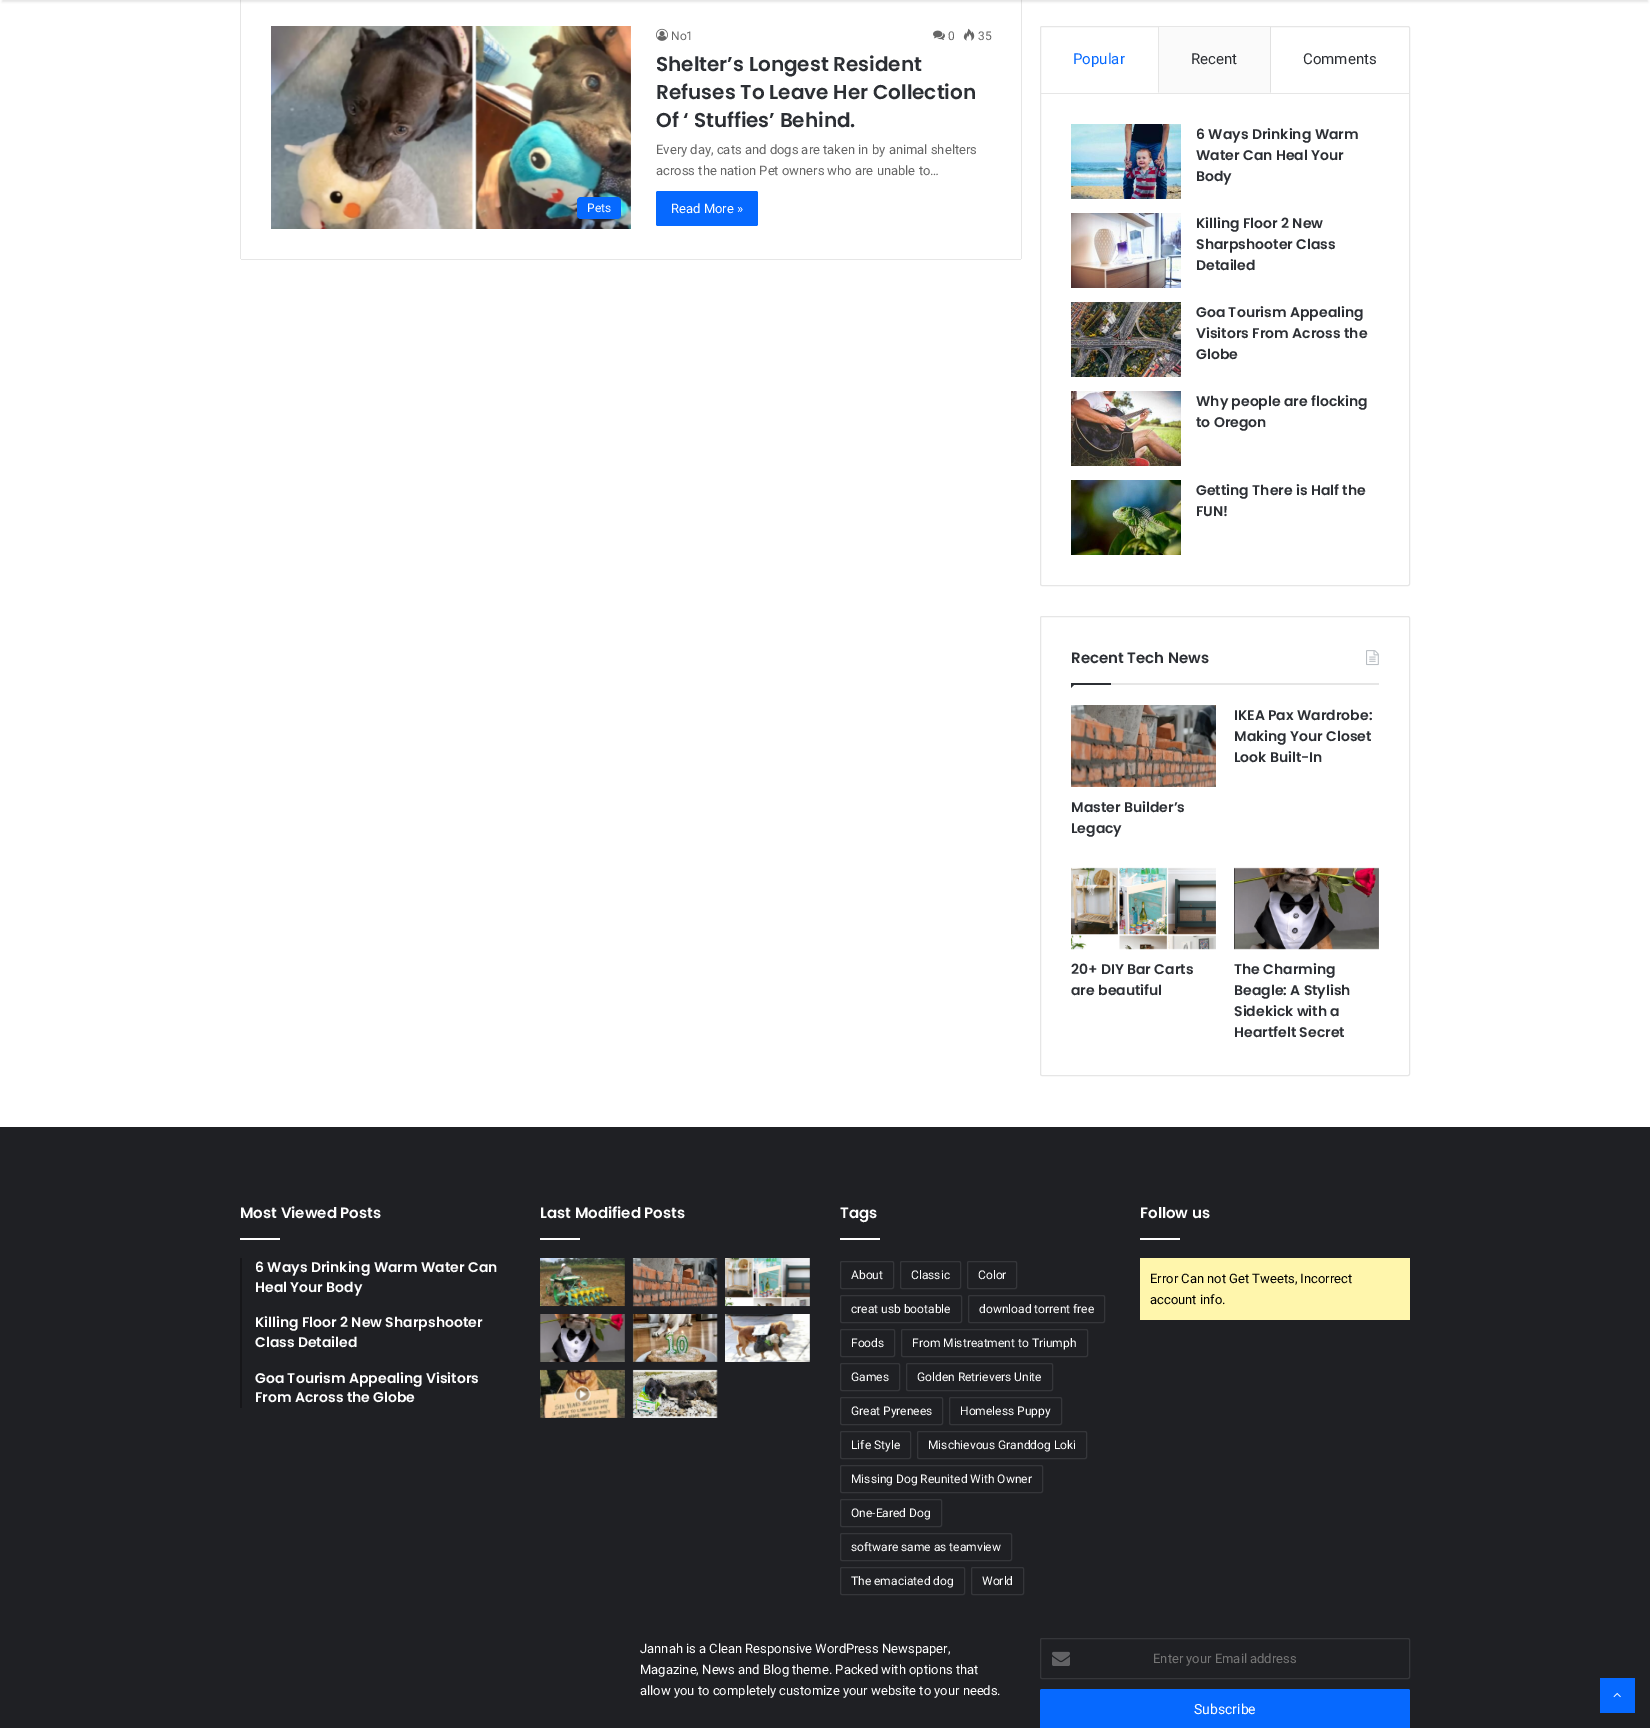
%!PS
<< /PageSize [1650 1728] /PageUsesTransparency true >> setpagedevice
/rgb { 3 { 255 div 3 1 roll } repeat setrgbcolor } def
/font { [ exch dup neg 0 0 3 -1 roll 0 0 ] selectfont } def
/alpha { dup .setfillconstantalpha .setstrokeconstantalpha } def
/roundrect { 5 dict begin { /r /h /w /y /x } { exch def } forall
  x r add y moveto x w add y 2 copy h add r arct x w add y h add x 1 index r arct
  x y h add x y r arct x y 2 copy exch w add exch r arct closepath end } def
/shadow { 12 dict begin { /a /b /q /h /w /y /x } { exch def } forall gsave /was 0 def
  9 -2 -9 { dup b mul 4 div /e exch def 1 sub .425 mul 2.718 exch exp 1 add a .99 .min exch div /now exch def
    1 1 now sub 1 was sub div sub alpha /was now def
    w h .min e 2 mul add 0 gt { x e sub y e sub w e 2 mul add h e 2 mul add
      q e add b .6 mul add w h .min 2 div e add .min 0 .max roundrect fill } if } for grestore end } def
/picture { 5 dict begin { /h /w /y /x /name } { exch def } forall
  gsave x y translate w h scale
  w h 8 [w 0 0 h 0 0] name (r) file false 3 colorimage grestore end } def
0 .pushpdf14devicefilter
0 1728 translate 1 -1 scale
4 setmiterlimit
255 255 255 rgb
0 0 1650 1728 rectfill
230 230 230 rgb
1021 0 1 259 rectfill
240 0 1 259 rectfill
0 0 0 rgb
2 -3 1646 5 0 1 0.1 shadow
230 230 230 rgb
241 259 780 1 rectfill
(img/1.rgb) 271 26 360 203 picture
6 105 255 rgb
577 197 44 22 4 roundrect fill
(img/2.rgb) 656 28 12 13 picture
(img/3.rgb) 933 30 12 10 picture
(img/4.rgb) 963 28 12 13 picture
656 191 102 35 2 roundrect fill
230 230 230 rgb
1040.5 26.5 369 559 1.5 roundrect stroke
1041 93 368 1 rectfill
1159 27 moveto 1159 93 lineto 1158 92 lineto 1158 27 lineto closepath fill
250 250 250 rgb
1159 27 112 66 rectfill
225 225 225 rgb
1271 27 moveto 1271 93 lineto 1270 92 lineto 1270 27 lineto closepath fill
(img/5.rgb) 1071 124 110 75 picture
(img/6.rgb) 1071 213 110 75 picture
(img/7.rgb) 1071 302 110 75 picture
(img/8.rgb) 1071 391 110 75 picture
(img/9.rgb) 1071 480 110 75 picture
230 230 230 rgb
1040.5 616.5 369 459 1.5 roundrect stroke
1111 683 268 2 rectfill
(img/10.rgb) 1366 650 13 16 picture
44 47 52 rgb
1071 683 moveto 1076 683 lineto 1071 688 lineto closepath fill
1071 683 40 2 rectfill
(img/11.rgb) 1071 705 145 82 picture
(img/12.rgb) 1071 867 145 83 picture
(img/13.rgb) 1234 867 145 83 picture
[
  [0 1127 1650 601 31 32 36]
  [240 1238 40 2 255 255 255]
  [240 1258 2 150 22 22 25]
  [540 1238 40 2 255 255 255]
] { aload pop rgb rectfill } forall
(img/14.rgb) 540 1258 85 49 picture
(img/15.rgb) 632 1258 86 49 picture
(img/16.rgb) 725 1258 85 49 picture
(img/17.rgb) 540 1314 85 48 picture
(img/18.rgb) 632 1314 86 48 picture
(img/19.rgb) 725 1314 85 48 picture
(img/20.rgb) 540 1369 85 49 picture
(img/21.rgb) 632 1369 86 49 picture
840 1238 40 2 rectfill
53 54 58 rgb
840.5 1261.5 53 27 1.5 roundrect stroke
900.5 1261.5 60 27 1.5 roundrect stroke
967.5 1261.5 49 27 1.5 roundrect stroke
840.5 1295.5 121 27 1.5 roundrect stroke
968.5 1295.5 136 27 1.5 roundrect stroke
840.5 1329.5 54 27 1.5 roundrect stroke
901.5 1329.5 186 27 1.5 roundrect stroke
840.5 1363.5 59 27 1.5 roundrect stroke
906.5 1363.5 146 27 1.5 roundrect stroke
840.5 1397.5 102 27 1.5 roundrect stroke
949.5 1397.5 112 27 1.5 roundrect stroke
840.5 1431.5 70 27 1.5 roundrect stroke
917.5 1431.5 169 27 1.5 roundrect stroke
840.5 1465.5 202 27 1.5 roundrect stroke
840.5 1499.5 101 27 1.5 roundrect stroke
840.5 1533.5 171 27 1.5 roundrect stroke
840.5 1567.5 124 27 1.5 roundrect stroke
971.5 1567.5 52 27 1.5 roundrect stroke
255 255 255 rgb
1140 1238 40 2 rectfill
255 246 172 rgb
1140 1258 270 62 rectfill
53 54 58 rgb
1040.5 1638.5 369 40 1.5 roundrect stroke
(img/22.rgb) 1052 1651 18 15 picture
6 105 255 rgb
1040 1689 370 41 2 roundrect fill
1600 1678 35 35 rectfill
(img/23.rgb) 1613 1692 8 6 picture
/Roboto-Regular 12 font
255 255 255 rgb
587 212 moveto (Pets) show
102 102 102 rgb
[
  [(No1) 671 40]
  [(0) 948 40]
  [(35) 978 40]
] { aload pop moveto show } forall
/Poppins-SemiBold 20 font
44 47 52 rgb
[
  [(Shelter’s Longest Resident) 656 71]
  [(Refuses To Leave Her Collection) 656 99]
  [(Of ‘ Stuffies’ Behind.) 656 127]
] { aload pop moveto show } forall
/Roboto-Regular 13 font
102 102 102 rgb
656 154 moveto (Every day, cats and dogs are taken in by animal shelters) show
656 175 moveto (across the nation Pet owners who are unable to…) show
255 255 255 rgb
671 213 moveto (Read More ») show
/Roboto-Regular 15 font
6 105 255 rgb
1073 64 moveto (Popular) show
44 47 52 rgb
1191 64 moveto (Recent) show
1303 64 moveto (Comments) show
/Poppins-SemiBold 14 font
[
  [(6 Ways Drinking Warm) 1196 139]
  [(Water Can Heal Your) 1196 160]
  [(Body) 1196 181]
  [(Killing Floor 2 New) 1196 228]
  [(Sharpshooter Class) 1196 249]
  [(Detailed) 1196 270]
  [(Goa Tourism Appealing) 1196 317]
  [(Visitors From Across the) 1196 338]
  [(Globe) 1196 359]
  [(Why people are flocking) 1196 406]
  [(to Oregon) 1196 427]
  [(Getting There is Half the) 1196 495]
  [(FUN!) 1196 516]
] { aload pop moveto show } forall
/Poppins-SemiBold 15 font
1071 663 moveto (Recent Tech News) show
/Poppins-SemiBold 14 font
[
  [(IKEA Pax Wardrobe:) 1234 720]
  [(Making Your Closet) 1234 741]
  [(Look Built-In) 1234 762]
  [(Master Builder’s) 1071 812]
  [(Legacy) 1071 833]
  [(20+ DIY Bar Carts) 1071 974]
  [(are beautiful) 1071 995]
  [(The Charming) 1234 974]
  [(Beagle: A Stylish) 1234 995]
  [(Sidekick with a) 1234 1016]
  [(Heartfelt Secret) 1234 1037]
] { aload pop moveto show } forall
/Poppins-SemiBold 15 font
255 255 255 rgb
240 1218 moveto (Most Viewed Posts) show
/Poppins-SemiBold 14 font
[
  [(6 Ways Drinking Warm Water Can) 255 1272]
  [(Heal Your Body) 255 1292]
  [(Killing Floor 2 New Sharpshooter) 255 1327]
  [(Class Detailed) 255 1347]
  [(Goa Tourism Appealing Visitors) 255 1383]
  [(From Across the Globe) 255 1402]
] { aload pop moveto show } forall
/Poppins-SemiBold 15 font
540 1218 moveto (Last Modified Posts) show
840 1218 moveto (Tags) show
/Roboto-Regular 12 font
[
  [(About) 851 1279]
  [(Classic) 911 1279]
  [(Color) 978 1279]
  [(creat usb bootable) 851 1313]
  [(download torrent free) 979 1313]
  [(Foods) 851 1347]
  [(From Mistreatment to Triumph) 912 1347]
  [(Games) 851 1381]
  [(Golden Retrievers Unite) 917 1381]
  [(Great Pyrenees) 851 1415]
  [(Homeless Puppy) 960 1415]
  [(Life Style) 851 1449]
  [(Mischievous Granddog Loki) 928 1449]
  [(Missing Dog Reunited With Owner) 851 1483]
  [(One-Eared Dog) 851 1517]
  [(software same as teamview) 851 1551]
  [(The emaciated dog) 851 1585]
  [(World) 982 1585]
] { aload pop moveto show } forall
/Poppins-SemiBold 15 font
1140 1218 moveto (Follow us) show
/Roboto-Regular 13 font
0 0 0 rgb
1150 1283 moveto (Error Can not Get Tweets, Incorrect) show
1150 1304 moveto (account info.) show
255 255 255 rgb
[
  [(Jannah is a Clean Responsive WordPress Newspaper,) 640 1653]
  [(Magazine, News and Blog theme. Packed with options that) 640 1674]
  [(allow you to completely customize your website to your needs.) 640 1695]
] { aload pop moveto show } forall
117 117 117 rgb
1153 1663 moveto (Enter your Email address) show
/Roboto-Regular 14 font
255 255 255 rgb
1194 1714 moveto (Subscribe) show
.poppdf14devicefilter showpage
